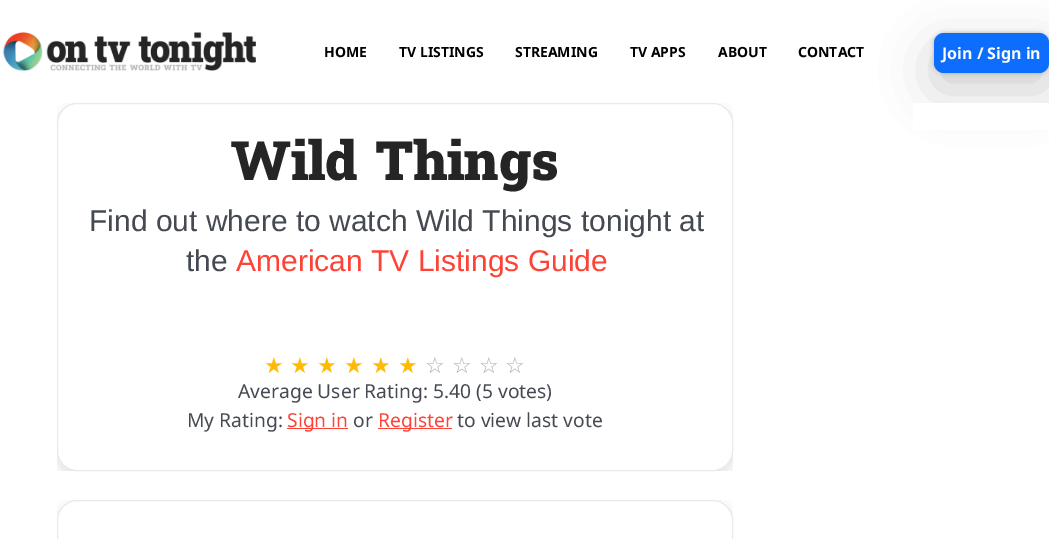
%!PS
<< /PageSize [1049 539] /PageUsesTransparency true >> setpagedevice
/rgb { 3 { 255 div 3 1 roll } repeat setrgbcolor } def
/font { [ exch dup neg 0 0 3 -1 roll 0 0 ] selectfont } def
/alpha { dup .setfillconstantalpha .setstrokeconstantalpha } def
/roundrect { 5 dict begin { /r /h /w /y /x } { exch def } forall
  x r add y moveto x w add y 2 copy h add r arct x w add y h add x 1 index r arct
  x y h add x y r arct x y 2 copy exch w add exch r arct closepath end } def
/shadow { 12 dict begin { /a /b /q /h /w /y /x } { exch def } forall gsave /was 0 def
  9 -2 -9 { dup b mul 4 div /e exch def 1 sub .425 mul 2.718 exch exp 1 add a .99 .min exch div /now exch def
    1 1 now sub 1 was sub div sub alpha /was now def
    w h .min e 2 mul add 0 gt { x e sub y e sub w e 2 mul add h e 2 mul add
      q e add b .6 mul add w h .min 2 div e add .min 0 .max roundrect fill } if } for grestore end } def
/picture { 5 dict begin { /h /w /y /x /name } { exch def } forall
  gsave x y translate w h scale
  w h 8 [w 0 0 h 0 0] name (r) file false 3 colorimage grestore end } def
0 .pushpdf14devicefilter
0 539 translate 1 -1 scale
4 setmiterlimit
255 255 255 rgb
0 0 1049 539 rectfill
(img/1.rgb) 3 32 253 39 picture
0 0 0 rgb
934 50 115 40 10 25 0.19 shadow
934 33 115 40 10 2.5 0.24 shadow
13 110 253 rgb
934 33 115 40 10 roundrect fill
255 255 255 rgb
913 103 136 27 rectfill
gsave
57 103 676 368 rectclip
74 74 74 rgb
57 108 676 368 20 7.5 0.2 shadow
grestore
57.5 103.5 675 367 19.5 roundrect gsave fill grestore
233 233 233 rgb
stroke
254 66 54 rgb
287 428 61 1 rectfill
378 428 74 1 rectfill
gsave
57 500 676 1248 rectclip
74 74 74 rgb
57 505 676 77 20 7.5 0.2 shadow
grestore
255 255 255 rgb
57.5 500.5 675 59 19.5 roundrect gsave fill grestore
233 233 233 rgb
stroke
/NotoSans-Bold 14 font
0 0 0 rgb
[
  [(HOME) 324 57]
  [(TV LISTINGS) 399 57]
  [(STREAMING) 515 57]
  [(TV APPS) 630 57]
  [(ABOUT) 718 57]
  [(CONTACT) 798 57]
] { aload pop moveto show } forall
/NotoSans-Bold 16 font
255 255 255 rgb
942 59 moveto (Join / Sign in) show
/Suwannaphum-Black 54.25 font
37 37 37 rgb
231 180 moveto (Wild Things) show
/LiberationSans-Regular 30 font
69 73 81 rgb
89 231 moveto (Find out where to watch Wild Things tonight at) show
186 271 moveto (the) show
254 66 54 rgb
236 271 moveto (American TV Listings Guide) show
/DejaVuSans-Regular 22 font
255 187 4 rgb
[
  [(★) 264 373]
  [(★) 290 373]
  [(★) 317 373]
  [(★) 344 373]
  [(★) 371 373]
  [(★) 398 373]
] { aload pop moveto show } forall
170 170 170 rgb
[
  [(☆) 425 373]
  [(☆) 452 373]
  [(☆) 479 373]
  [(☆) 505 373]
] { aload pop moveto show } forall
/NotoSans-Regular 19.25 font
69 73 81 rgb
238 398 moveto (Average User Rating: 5.40 \(5 votes\)) show
187 427 moveto (My Rating:) show
254 66 54 rgb
287 427 moveto (Sign in) show
69 73 81 rgb
353 427 moveto (or) show
254 66 54 rgb
378 427 moveto (Register) show
69 73 81 rgb
457 427 moveto (to view last vote) show
.poppdf14devicefilter showpage
